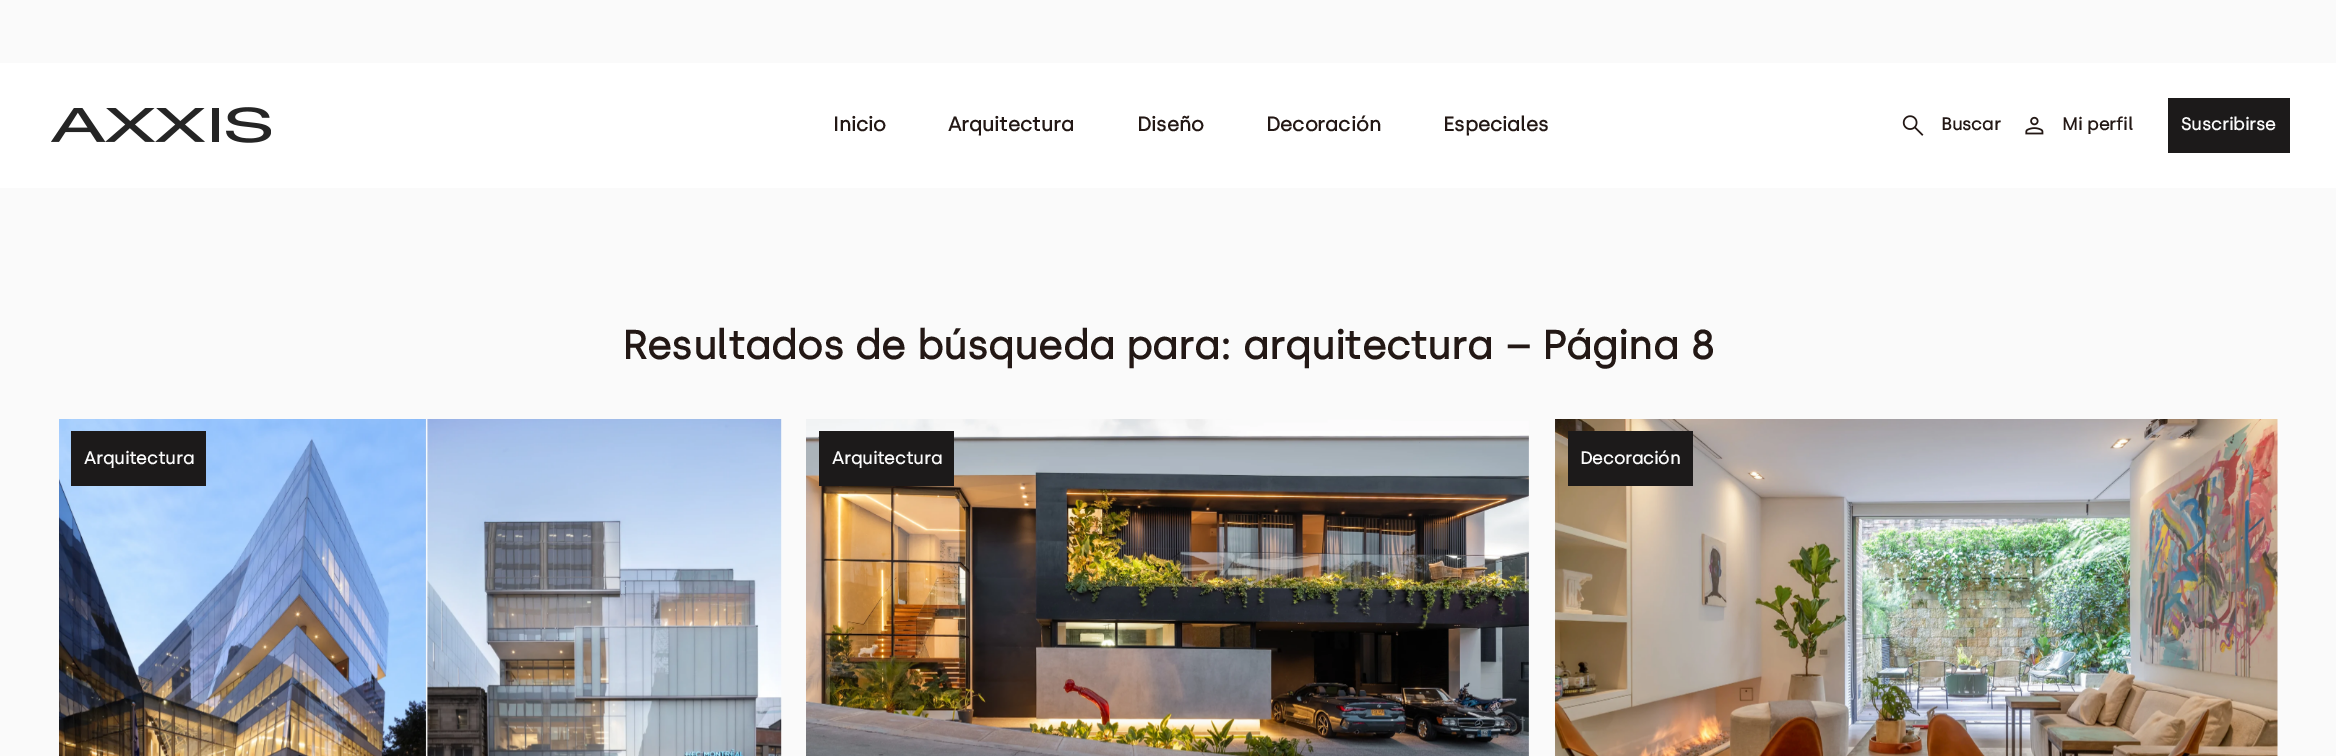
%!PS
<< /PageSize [2336 756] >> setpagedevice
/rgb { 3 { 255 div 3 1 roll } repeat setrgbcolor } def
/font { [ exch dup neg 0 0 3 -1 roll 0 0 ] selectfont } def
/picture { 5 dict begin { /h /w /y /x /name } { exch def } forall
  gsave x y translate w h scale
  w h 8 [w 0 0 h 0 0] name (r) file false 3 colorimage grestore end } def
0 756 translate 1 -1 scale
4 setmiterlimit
250 250 250 rgb
0 0 2336 756 rectfill
255 255 255 rgb
0 63 2336 125 rectfill
(img/1.rgb) 51 107 220 36 picture
(img/2.rgb) 1902 115 22 21 picture
(img/3.rgb) 2025 116 19 19 picture
28 26 26 rgb
2168 98 122 55 rectfill
(img/4.rgb) 59 419 723 337 picture
71 431 135 55 rectfill
(img/5.rgb) 806 419 723 337 picture
819 431 135 55 rectfill
(img/6.rgb) 1555 419 723 337 picture
1568 431 125 55 rectfill
/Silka-Bold 20 font
35 24 21 rgb
[
  [(Inicio) 833 131]
  [(Arquitectura) 948 131]
  [(Diseño) 1137 131]
  [(Decoración) 1266 131]
  [(Especiales) 1443 131]
] { aload pop moveto show } forall
/Silka-Bold 17.5 font
1941 130 moveto (Buscar) show
2062 130 moveto (Mi perfil) show
250 250 250 rgb
2181 130 moveto (Suscribirse) show
/Silka-Bold 40 font
35 24 21 rgb
622 359 moveto (Resultados de búsqueda para: arquitectura – Página 8) show
/Silka-Bold 17.5 font
250 250 250 rgb
[
  [(Arquitectura) 84 464]
  [(Arquitectura) 832 464]
  [(Decoración) 1580 464]
] { aload pop moveto show } forall
showpage
